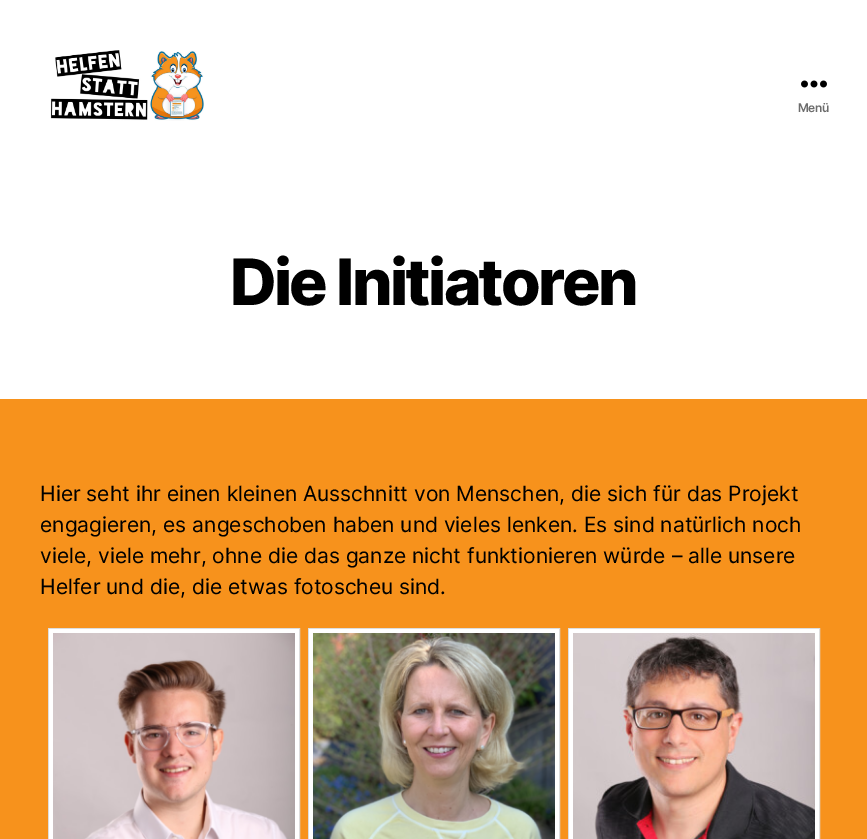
%!PS
<< /PageSize [867 839] >> setpagedevice
/rgb { 3 { 255 div 3 1 roll } repeat setrgbcolor } def
/font { [ exch dup neg 0 0 3 -1 roll 0 0 ] selectfont } def
/picture { 5 dict begin { /h /w /y /x /name } { exch def } forall
  gsave x y translate w h scale
  w h 8 [w 0 0 h 0 0] name (r) file false 3 colorimage grestore end } def
0 839 translate 1 -1 scale
4 setmiterlimit
247 146 28 rgb
0 0 867 839 rectfill
255 255 255 rgb
0 0 867 399 rectfill
(img/1.rgb) 50 50 154 71 picture
(img/2.rgb) 801 80 26 8 picture
221 221 221 rgb
48.5 628.5 251 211 rectstroke
255 255 255 rgb
49 629 250 210 rectfill
(img/3.rgb) 53 633 242 206 picture
221 221 221 rgb
308.5 628.5 251 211 rectstroke
255 255 255 rgb
309 629 250 210 rectfill
(img/4.rgb) 313 633 242 206 picture
221 221 221 rgb
568.5 628.5 251 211 rectstroke
255 255 255 rgb
569 629 250 210 rectfill
(img/5.rgb) 573 633 242 206 picture
/Inter-SemiBold 12 font
109 109 109 rgb
798 112 moveto -0.5 0 (Menü) ashow
/Inter-ExtraBold 64 font
0 0 0 rgb
230 305 moveto -2.7 0 (Die Initiatoren) ashow
/Inter-Regular 21 font
[
  [(Hier seht ihr einen kleinen Ausschnitt von Menschen, die sich für das Projekt) 40 501]
  [(engagieren, es angeschoben haben und vieles lenken. Es sind natürlich noch) 40 532]
  [(viele, viele mehr, ohne die das ganze nicht funktionieren würde – alle unsere) 40 563]
  [(Helfer und die, die etwas fotoscheu sind.) 40 594]
] { aload pop moveto show } forall
showpage
